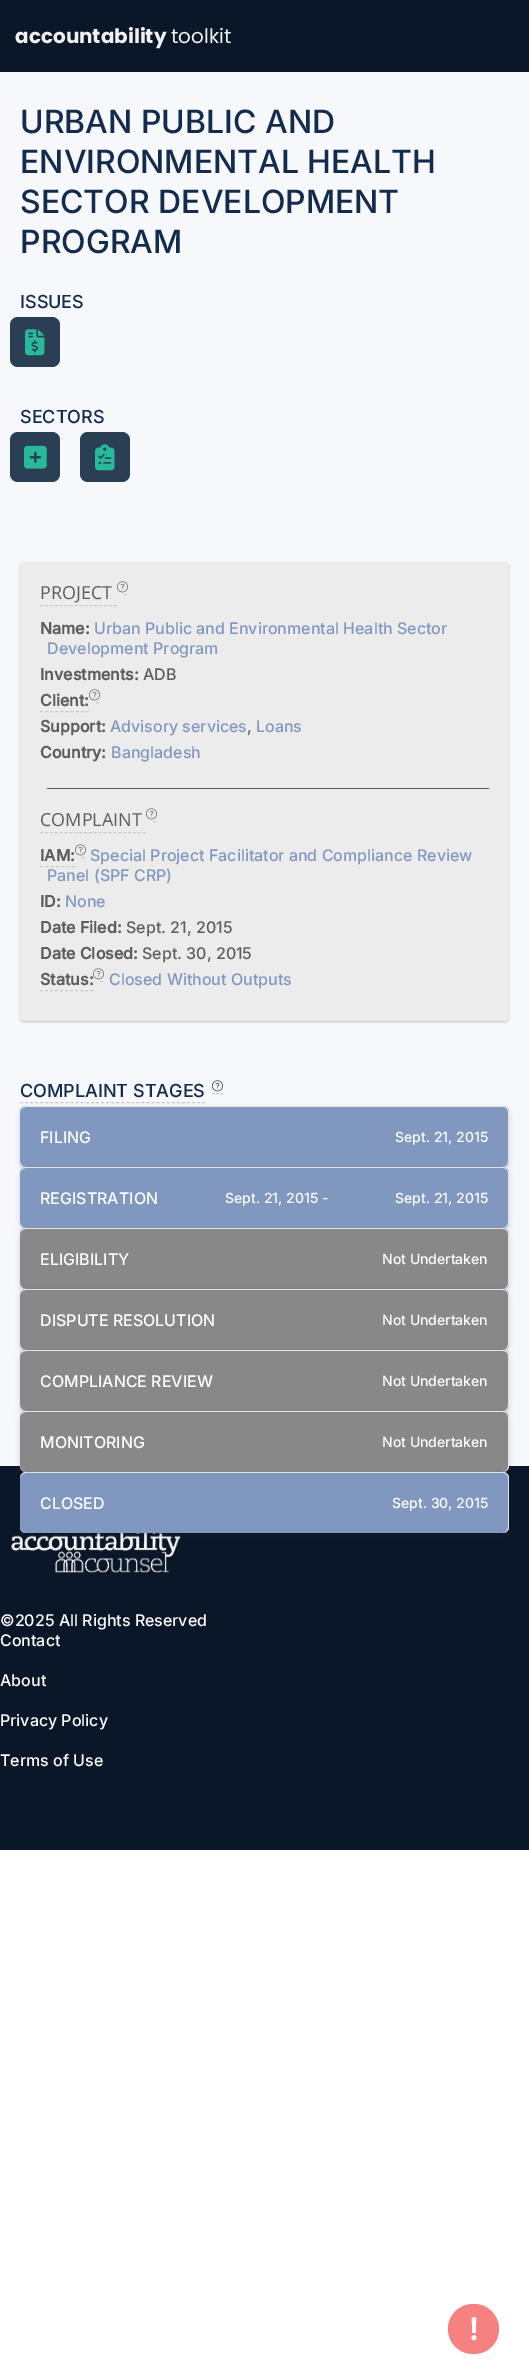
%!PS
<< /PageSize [529 2374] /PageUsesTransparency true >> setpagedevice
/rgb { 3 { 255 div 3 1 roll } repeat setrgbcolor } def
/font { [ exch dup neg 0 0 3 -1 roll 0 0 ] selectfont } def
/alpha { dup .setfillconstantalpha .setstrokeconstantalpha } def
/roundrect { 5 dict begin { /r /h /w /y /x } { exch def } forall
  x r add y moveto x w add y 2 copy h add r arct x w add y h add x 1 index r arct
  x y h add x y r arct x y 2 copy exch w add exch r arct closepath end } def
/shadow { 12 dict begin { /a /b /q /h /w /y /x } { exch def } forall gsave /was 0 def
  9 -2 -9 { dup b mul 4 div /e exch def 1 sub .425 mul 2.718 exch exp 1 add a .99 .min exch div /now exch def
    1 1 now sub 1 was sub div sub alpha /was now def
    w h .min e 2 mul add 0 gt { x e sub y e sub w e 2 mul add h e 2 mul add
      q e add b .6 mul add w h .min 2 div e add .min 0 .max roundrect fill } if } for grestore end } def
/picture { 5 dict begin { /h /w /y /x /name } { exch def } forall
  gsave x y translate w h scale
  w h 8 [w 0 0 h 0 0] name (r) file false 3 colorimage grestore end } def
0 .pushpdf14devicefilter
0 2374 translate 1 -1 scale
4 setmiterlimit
255 255 255 rgb
0 0 529 2374 rectfill
10 23 41 rgb
0 0 529 72 rectfill
247 248 252 rgb
0 72 529 1394 rectfill
42 63 84 rgb
10 317 50 50 8 roundrect fill
(img/1.rgb) 25 329 20 27 picture
10 432 50 50 8 roundrect fill
(img/2.rgb) 24 445 23 24 picture
80 432 50 50 8 roundrect fill
(img/3.rgb) 95 444 20 27 picture
136 136 136 rgb
20 563 489 459 4 1 0.5 shadow
236 236 236 rgb
20 562 489 459 4 roundrect fill
93 93 93 rgb
47 788 442 1 rectfill
202 202 202 rgb
[3 1.93] 0 setdash
40 605.5 moveto 117 605.5 lineto stroke
[] 0 setdash
124 594.5 moveto 127 594.5 lineto stroke
(img/4.rgb) 117 581 11 12 picture
[3 2.11] 0 setdash
40 711.5 moveto 89 711.5 lineto stroke
[] 0 setdash
96 702.5 moveto 99 702.5 lineto stroke
(img/4.rgb) 89 689 11 12 picture
[3 1.9] 0 setdash
40 832.5 moveto 146 832.5 lineto stroke
[] 0 setdash
153 821.5 moveto 156 821.5 lineto stroke
(img/4.rgb) 146 808 11 12 picture
[3 2.33] 0 setdash
40 866.5 moveto 75 866.5 lineto stroke
[] 0 setdash
82 857.5 moveto 85 857.5 lineto stroke
(img/4.rgb) 75 844 11 12 picture
[3 2] 0 setdash
40 990.5 moveto 93 990.5 lineto stroke
[] 0 setdash
100 981.5 moveto 103 981.5 lineto stroke
(img/4.rgb) 93 968 11 12 picture
[3 2.06] 0 setdash
20 1102.5 moveto 205 1102.5 lineto stroke
[] 0 setdash
212 1093.5 moveto 215 1093.5 lineto 216 1093.5 moveto 219 1093.5 lineto 220 1093.5 moveto 223 1093.5 lineto stroke
(img/5.rgb) 212 1080 11 12 picture
0 0 0 rgb
20 1107 489 61 6 1.5 0.08 shadow
50 50 93 rgb
20 1110 489 61 6 3 0.11 shadow
128 151 191 rgb
20 1106 489 61 6 roundrect fill
229 229 230 rgb
26 1106 moveto 503 1106 lineto 506 1106 509 1109 509 1112 curveto 509 1161 lineto 509 1164 506 1167 503 1167 curveto 26 1167 lineto 23 1167 20 1164 20 1161 curveto 20 1112 lineto 20 1109 23 1106 26 1106 curveto closepath 26 1107 moveto 503 1107 lineto 506 1107 508 1109 508 1112 curveto 508 1161 lineto 508 1164 506 1167 503 1167 curveto 26 1167 lineto 23 1167 20 1164 20 1161 curveto 20 1112 lineto 20 1109 23 1107 26 1107 curveto closepath eofill
0 0 0 rgb
20 1168 489 61 6 1.5 0.08 shadow
50 50 93 rgb
20 1171 489 61 6 3 0.11 shadow
128 151 191 rgb
20 1167 489 61 6 roundrect fill
229 229 230 rgb
26 1167 moveto 503 1167 lineto 506 1167 509 1170 509 1173 curveto 509 1222 lineto 509 1225 506 1228 503 1228 curveto 26 1228 lineto 23 1228 20 1225 20 1222 curveto 20 1173 lineto 20 1170 23 1167 26 1167 curveto closepath 26 1168 moveto 503 1168 lineto 506 1168 508 1170 508 1173 curveto 508 1222 lineto 508 1225 506 1228 503 1228 curveto 26 1228 lineto 23 1228 20 1225 20 1222 curveto 20 1173 lineto 20 1170 23 1168 26 1168 curveto closepath eofill
0 0 0 rgb
20 1229 489 61 6 1.5 0.08 shadow
50 50 93 rgb
20 1232 489 61 6 3 0.11 shadow
136 136 136 rgb
20 1228 489 61 6 roundrect fill
229 229 230 rgb
26 1228 moveto 503 1228 lineto 506 1228 509 1231 509 1234 curveto 509 1283 lineto 509 1286 506 1289 503 1289 curveto 26 1289 lineto 23 1289 20 1286 20 1283 curveto 20 1234 lineto 20 1231 23 1228 26 1228 curveto closepath 26 1229 moveto 503 1229 lineto 506 1229 508 1231 508 1234 curveto 508 1283 lineto 508 1286 506 1289 503 1289 curveto 26 1289 lineto 23 1289 20 1286 20 1283 curveto 20 1234 lineto 20 1231 23 1229 26 1229 curveto closepath eofill
0 0 0 rgb
20 1290 489 61 6 1.5 0.08 shadow
50 50 93 rgb
20 1293 489 61 6 3 0.11 shadow
136 136 136 rgb
20 1289 489 61 6 roundrect fill
229 229 230 rgb
26 1289 moveto 503 1289 lineto 506 1289 509 1292 509 1295 curveto 509 1344 lineto 509 1347 506 1350 503 1350 curveto 26 1350 lineto 23 1350 20 1347 20 1344 curveto 20 1295 lineto 20 1292 23 1289 26 1289 curveto closepath 26 1290 moveto 503 1290 lineto 506 1290 508 1292 508 1295 curveto 508 1344 lineto 508 1347 506 1350 503 1350 curveto 26 1350 lineto 23 1350 20 1347 20 1344 curveto 20 1295 lineto 20 1292 23 1290 26 1290 curveto closepath eofill
0 0 0 rgb
20 1351 489 61 6 1.5 0.08 shadow
50 50 93 rgb
20 1354 489 61 6 3 0.11 shadow
136 136 136 rgb
20 1350 489 61 6 roundrect fill
229 229 230 rgb
26 1350 moveto 503 1350 lineto 506 1350 509 1353 509 1356 curveto 509 1405 lineto 509 1408 506 1411 503 1411 curveto 26 1411 lineto 23 1411 20 1408 20 1405 curveto 20 1356 lineto 20 1353 23 1350 26 1350 curveto closepath 26 1351 moveto 503 1351 lineto 506 1351 508 1353 508 1356 curveto 508 1405 lineto 508 1408 506 1411 503 1411 curveto 26 1411 lineto 23 1411 20 1408 20 1405 curveto 20 1356 lineto 20 1353 23 1351 26 1351 curveto closepath eofill
10 23 41 rgb
0 1466 529 384 rectfill
0 0 0 rgb
20 1412 489 61 6 1.5 0.08 shadow
50 50 93 rgb
20 1415 489 61 6 3 0.11 shadow
136 136 136 rgb
20 1411 489 61 6 roundrect fill
229 229 230 rgb
26 1411 moveto 503 1411 lineto 506 1411 509 1414 509 1417 curveto 509 1466 lineto 509 1469 506 1472 503 1472 curveto 26 1472 lineto 23 1472 20 1469 20 1466 curveto 20 1417 lineto 20 1414 23 1411 26 1411 curveto closepath 26 1412 moveto 503 1412 lineto 506 1412 508 1414 508 1417 curveto 508 1466 lineto 508 1469 506 1472 503 1472 curveto 26 1472 lineto 23 1472 20 1469 20 1466 curveto 20 1417 lineto 20 1414 23 1412 26 1412 curveto closepath eofill
(img/6.rgb) 11 1533 170 40 picture
0 0 0 rgb
20 1473 489 61 6 1.5 0.08 shadow
50 50 93 rgb
20 1476 489 61 6 3 0.11 shadow
128 151 191 rgb
20 1472 489 61 6 roundrect fill
229 229 230 rgb
26 1472 moveto 503 1472 lineto 506 1472 509 1475 509 1478 curveto 509 1527 lineto 509 1530 506 1533 503 1533 curveto 26 1533 lineto 23 1533 20 1530 20 1527 curveto 20 1478 lineto 20 1475 23 1472 26 1472 curveto closepath 26 1473 moveto 503 1473 lineto 506 1473 508 1475 508 1478 curveto 508 1527 lineto 508 1530 506 1533 503 1533 curveto 26 1533 lineto 23 1533 20 1530 20 1527 curveto 20 1478 lineto 20 1475 23 1473 26 1473 curveto closepath eofill
247 129 129 rgb
448 2304 51 50 25 roundrect fill
/Poppins-Bold 20 font
240 240 240 rgb
15 43 moveto (accountability) show
/Poppins-Regular 20 font
171 43 moveto (toolkit) show
/Inter-Medium 32 font
19 44 78 rgb
[
  [(URBAN PUBLIC AND) 20 133]
  [(ENVIRONMENTAL HEALTH) 20 173]
  [(SECTOR DEVELOPMENT) 20 213]
  [(PROGRAM) 20 253]
] { aload pop moveto show } forall
/Inter-Medium 18 font
20 308 moveto (ISSUES) show
20 423 moveto (SECTORS) show
/OpenSans-Regular 18 font
93 93 93 rgb
40 599 moveto (PROJECT) show
/Inter-Bold 16 font
40 634 moveto (Name:) show
/Inter-Medium 16 font
128 151 191 rgb
94 634 moveto (Urban Public and Environmental Health Sector) show
47 654 moveto (Development Program) show
/Inter-Bold 16 font
93 93 93 rgb
40 680 moveto (Investments:) show
/Inter-Medium 16 font
143 680 moveto (ADB) show
/Inter-Bold 16 font
40 706 moveto (Client:) show
40 732 moveto (Support:) show
/Inter-Medium 16 font
128 151 191 rgb
110 732 moveto (Advisory services) show
93 93 93 rgb
247 732 moveto (,) show
128 151 191 rgb
256 732 moveto (Loans) show
/Inter-Bold 16 font
93 93 93 rgb
40 758 moveto (Country:) show
/Inter-Medium 16 font
128 151 191 rgb
111 758 moveto (Bangladesh) show
/OpenSans-Regular 18 font
93 93 93 rgb
40 826 moveto (COMPLAINT) show
/Inter-Bold 16 font
40 861 moveto (IAM:) show
/Inter-Medium 16 font
128 151 191 rgb
90 861 moveto (Special Project Facilitator and Compliance Review) show
47 881 moveto (Panel \(SPF CRP\)) show
/Inter-Bold 16 font
93 93 93 rgb
40 907 moveto (ID:) show
/Inter-Medium 16 font
128 151 191 rgb
65 907 moveto (None) show
/Inter-Bold 16 font
93 93 93 rgb
40 933 moveto (Date Filed:) show
/Inter-Medium 16 font
126 933 moveto (Sept. 21, 2015) show
/Inter-Bold 16 font
40 959 moveto (Date Closed:) show
/Inter-Medium 16 font
142 959 moveto (Sept. 30, 2015) show
/Inter-Bold 16 font
40 985 moveto (Status:) show
/Inter-Medium 16 font
128 151 191 rgb
109 985 moveto (Closed Without Outputs) show
/Inter-Medium 18 font
19 44 78 rgb
20 1097 moveto (COMPLAINT STAGES) show
/Inter-Medium 16 font
255 255 255 rgb
40 1143 moveto (FILING) show
/Inter-Medium 14 font
395 1142 moveto (Sept. 21, 2015) show
/Inter-Medium 16 font
40 1204 moveto (REGISTRATION) show
/Inter-Medium 14 font
225 1203 moveto (Sept. 21, 2015 -) show
395 1203 moveto (Sept. 21, 2015) show
/Inter-Medium 16 font
40 1265 moveto (ELIGIBILITY) show
/Inter-Medium 14 font
382 1264 moveto (Not Undertaken) show
/Inter-Medium 16 font
40 1326 moveto (DISPUTE RESOLUTION) show
/Inter-Medium 14 font
382 1325 moveto (Not Undertaken) show
/Inter-Medium 16 font
40 1387 moveto (COMPLIANCE REVIEW) show
/Inter-Medium 14 font
382 1386 moveto (Not Undertaken) show
/Inter-Medium 16 font
40 1448 moveto (MONITORING) show
/Inter-Medium 14 font
382 1447 moveto (Not Undertaken) show
/Inter-Medium 16 font
40 1509 moveto (CLOSED) show
/Inter-Medium 14 font
392 1508 moveto (Sept. 30, 2015) show
/Inter-Medium 16 font
[
  [(©2025 All Rights Reserved) 0 1626]
  [(Contact) 0 1646]
  [(About) 0 1686]
  [(Privacy Policy) 0 1726]
  [(Terms of Use) 0 1766]
] { aload pop moveto show } forall
/Inter-Bold 30 font
469 2340 moveto (!) show
.poppdf14devicefilter showpage
